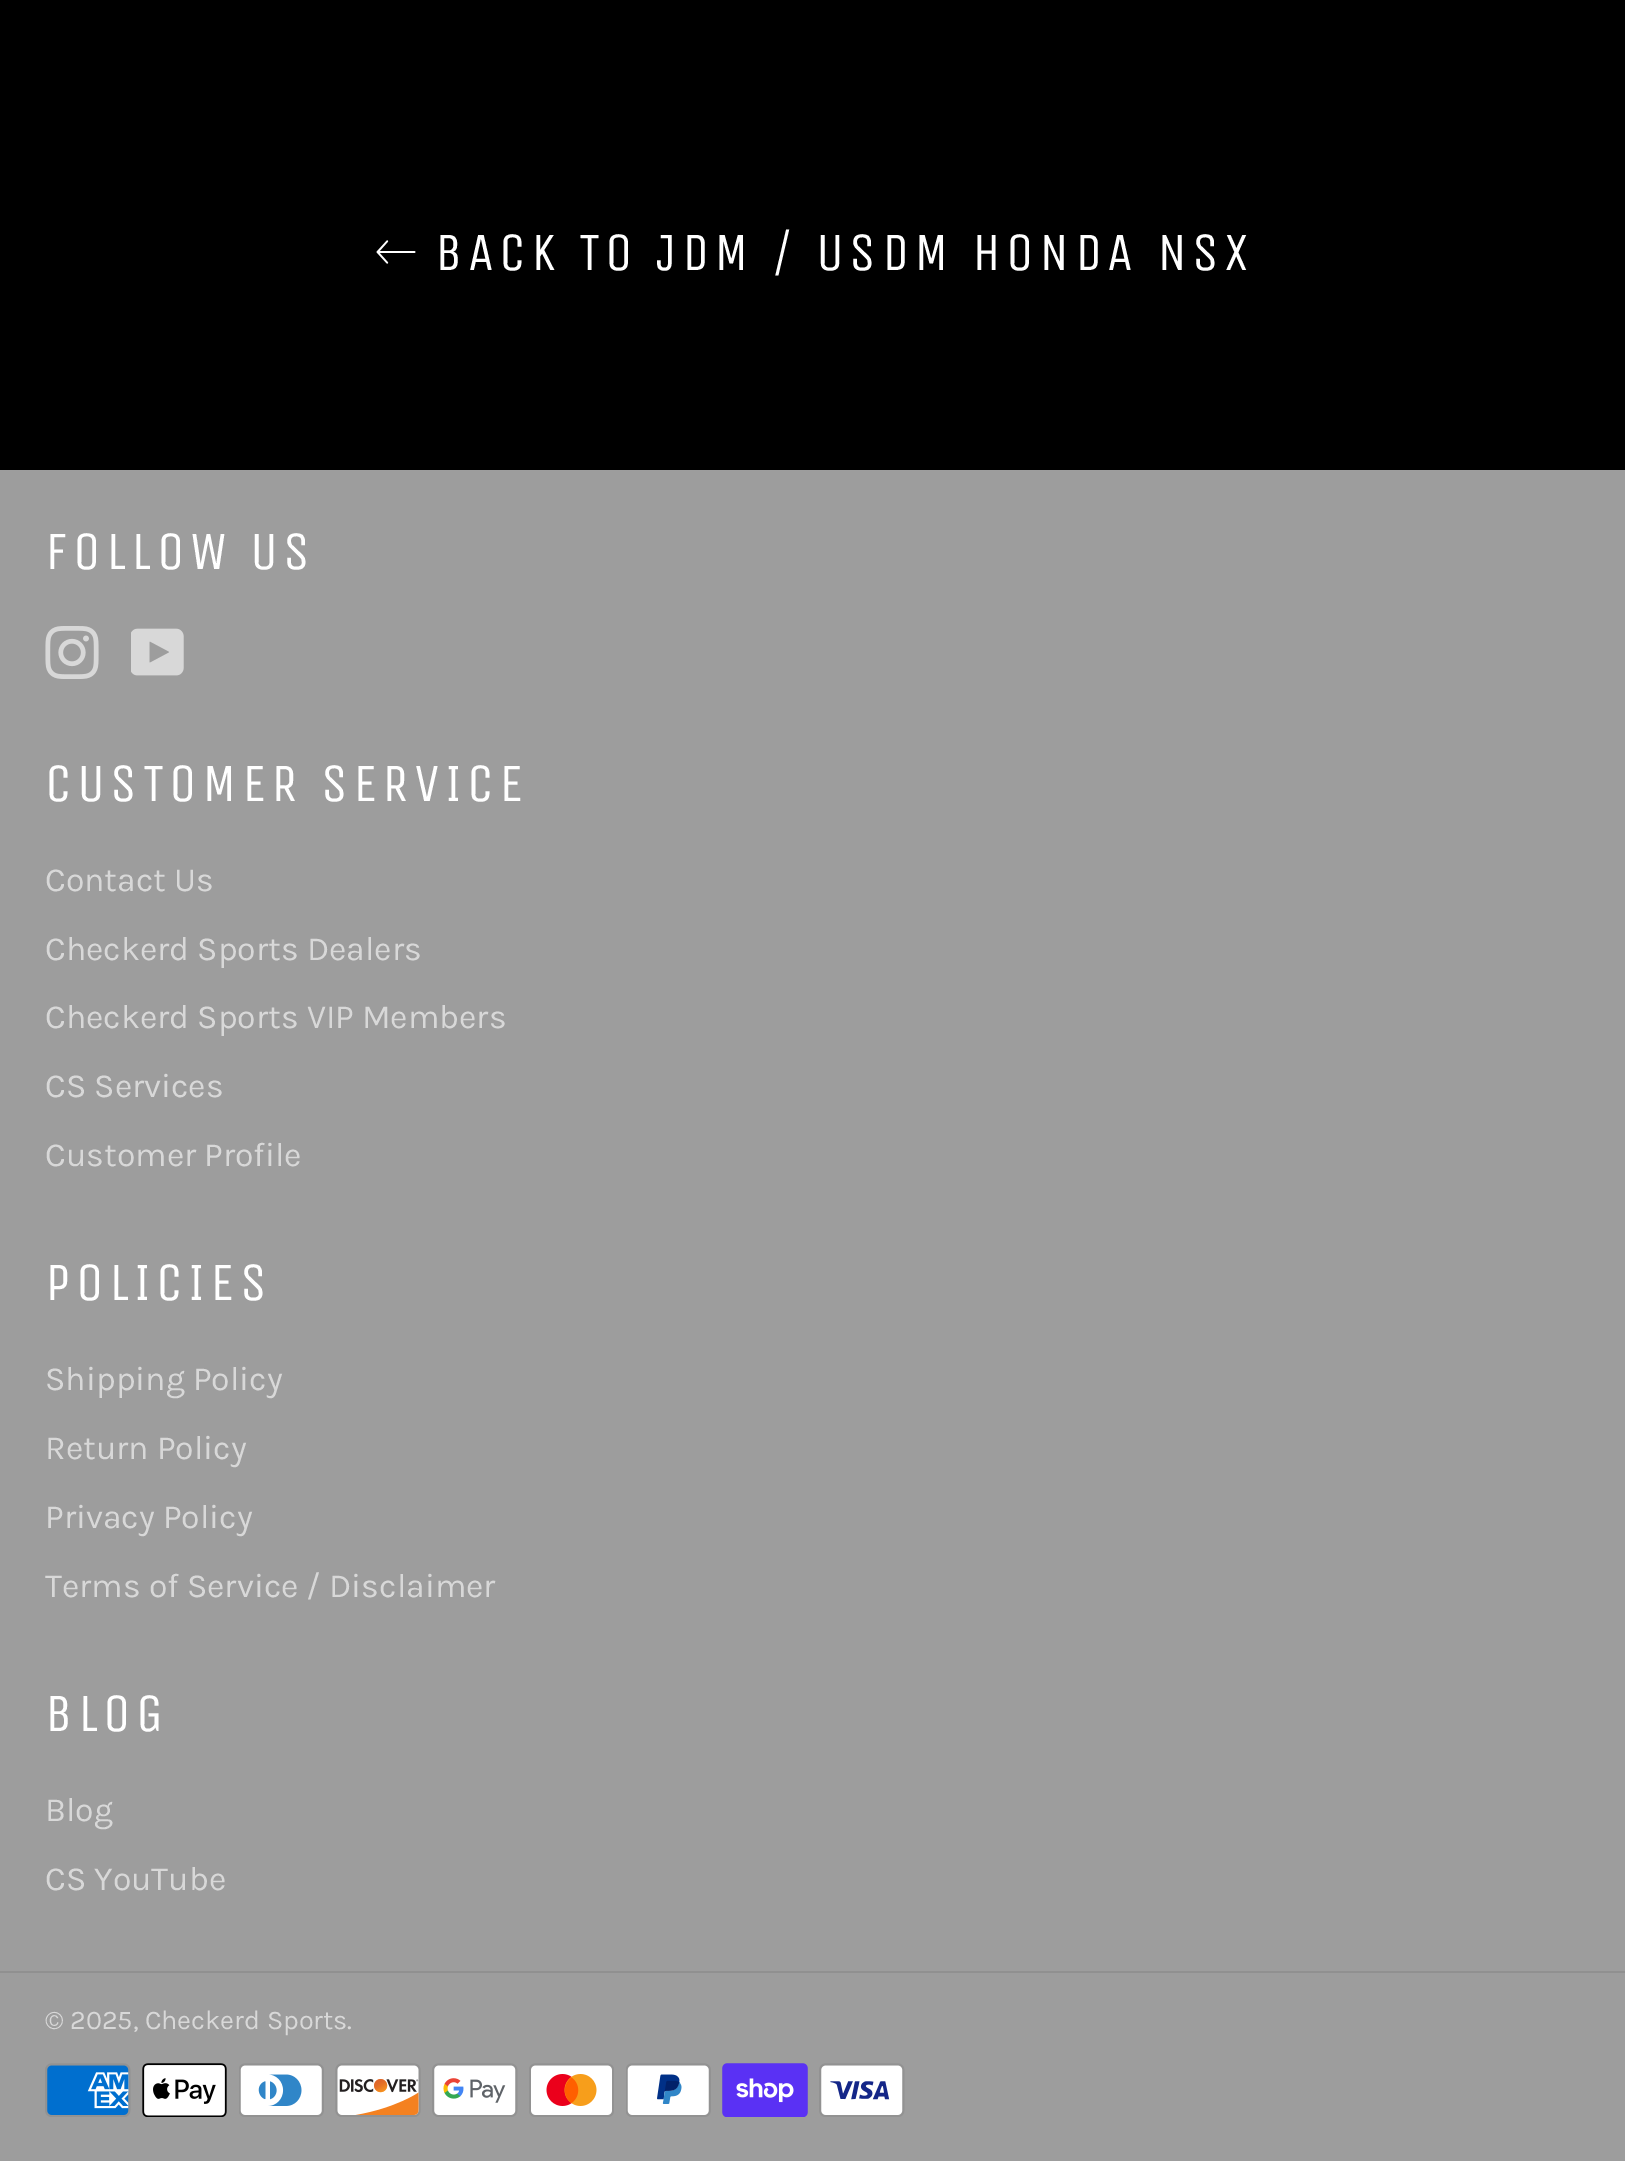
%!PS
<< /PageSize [1625 2161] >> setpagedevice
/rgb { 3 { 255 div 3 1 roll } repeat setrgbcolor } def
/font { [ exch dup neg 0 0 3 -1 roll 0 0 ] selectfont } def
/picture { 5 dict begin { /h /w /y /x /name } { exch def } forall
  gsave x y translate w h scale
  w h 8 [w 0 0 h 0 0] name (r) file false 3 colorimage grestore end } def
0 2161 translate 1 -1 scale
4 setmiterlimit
0 0 0 rgb
0 0 1625 2161 rectfill
(img/1.rgb) 376 240 40 24 picture
157 157 157 rgb
0 470 1625 1691 rectfill
(img/2.rgb) 45 626 54 53 picture
(img/3.rgb) 131 628 53 48 picture
144 144 144 rgb
0 1971 1625 2 rectfill
(img/4.rgb) 45 2063 86 54 picture
(img/5.rgb) 142 2063 85 54 picture
(img/6.rgb) 239 2063 85 54 picture
(img/7.rgb) 335 2063 86 54 picture
(img/8.rgb) 432 2063 86 54 picture
(img/9.rgb) 529 2063 85 54 picture
(img/10.rgb) 626 2063 85 54 picture
(img/11.rgb) 722 2063 86 54 picture
(img/12.rgb) 819 2063 86 54 picture
/UnicaOne-Regular 54 font
255 255 255 rgb
435 270 moveto 5.4 0 (BACK TO JDM / USDM HONDA NSX) ashow
45 569 moveto 5.4 0 (FOLLOW US) ashow
45 801 moveto 5.4 0 (CUSTOMER SERVICE) ashow
/Karla-Regular 33.75 font
216 216 216 rgb
[
  [(Contact Us) 45 891]
  [(Checkerd Sports Dealers) 45 960]
  [(Checkerd Sports VIP Members) 45 1028]
  [(CS Services) 45 1097]
  [(Customer Profile) 45 1166]
] { aload pop moveto show } forall
/UnicaOne-Regular 54 font
255 255 255 rgb
45 1300 moveto 5.4 0 (POLICIES) ashow
/Karla-Regular 33.75 font
216 216 216 rgb
[
  [(Shipping Policy) 45 1390]
  [(Return Policy) 45 1459]
  [(Privacy Policy) 45 1528]
  [(Terms of Service / Disclaimer) 45 1597]
] { aload pop moveto show } forall
/UnicaOne-Regular 54 font
255 255 255 rgb
45 1731 moveto 5.4 0 (BLOG) ashow
/Karla-Regular 33.75 font
216 216 216 rgb
45 1821 moveto (Blog) show
45 1890 moveto (CS YouTube) show
/Karla-Regular 27 font
45 2029 moveto (© 2025, Checkerd Sports.) show
showpage
